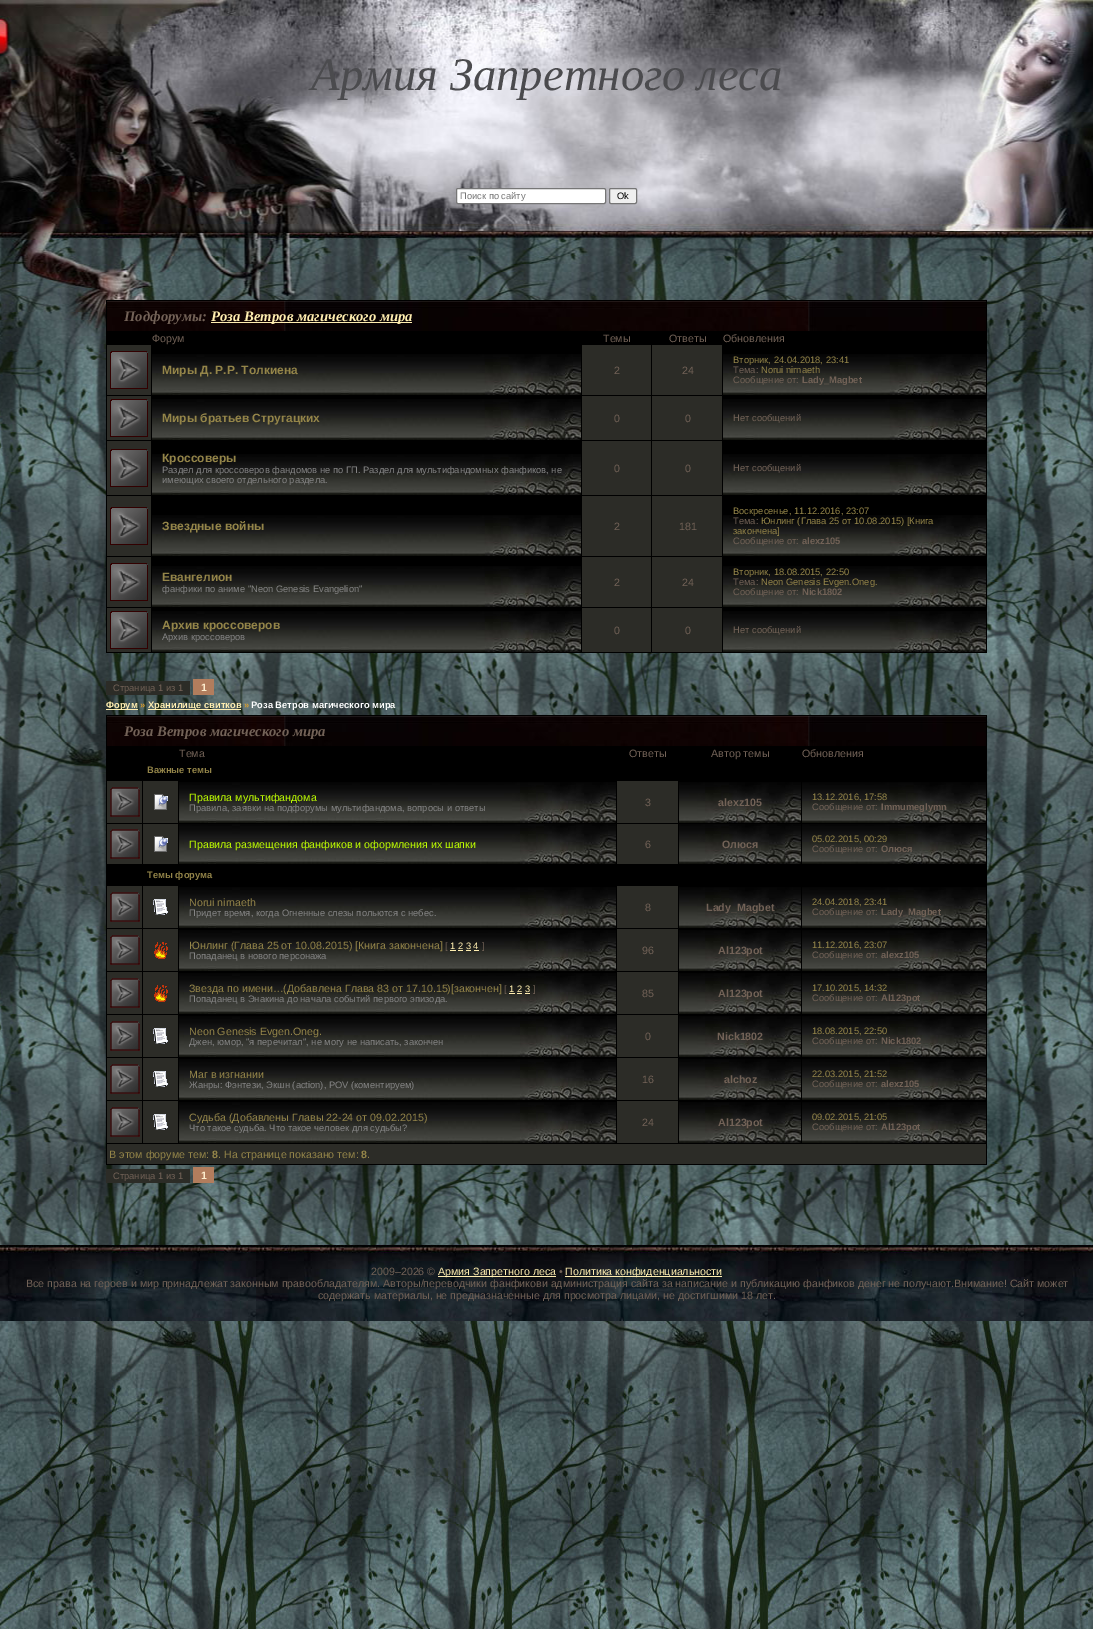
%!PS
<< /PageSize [1093 1629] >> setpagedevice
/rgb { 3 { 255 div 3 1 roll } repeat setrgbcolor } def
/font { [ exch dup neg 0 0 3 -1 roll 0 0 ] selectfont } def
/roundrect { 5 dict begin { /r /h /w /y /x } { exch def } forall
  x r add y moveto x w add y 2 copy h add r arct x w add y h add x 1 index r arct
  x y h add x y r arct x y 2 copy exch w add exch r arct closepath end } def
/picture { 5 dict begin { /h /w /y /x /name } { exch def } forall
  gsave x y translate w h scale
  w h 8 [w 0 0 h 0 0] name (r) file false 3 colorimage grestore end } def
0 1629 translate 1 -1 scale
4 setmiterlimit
255 255 255 rgb
0 0 1093 1629 rectfill
(img/1.rgb) 0 1321 1093 308 picture
(img/2.rgb) 0 349 1093 896 picture
(img/3.rgb) 0 0 1093 349 picture
456.5 188.5 149 15 1.5 roundrect gsave fill grestore
118 118 118 rgb
stroke
239 239 239 rgb
609.5 188.5 27 15 1.5 roundrect gsave fill grestore
118 118 118 rgb
stroke
0 0 0 rgb
106 300 881 353 rectfill
(img/4.rgb) 107 301 879 30 picture
255 238 176 rgb
211 322 201 1 rectfill
44 44 39 rgb
107 345 44 50 rectfill
(img/5.rgb) 110 351 38 38 picture
(img/6.rgb) 152 354 429 41 picture
582 345 69 50 rectfill
652 345 70 50 rectfill
(img/7.rgb) 723 354 263 41 picture
107 396 44 44 rectfill
(img/5.rgb) 110 399 38 38 picture
(img/6.rgb) 152 399 429 41 picture
582 396 69 44 rectfill
652 396 70 44 rectfill
(img/7.rgb) 723 399 263 41 picture
107 441 44 54 rectfill
(img/5.rgb) 110 449 38 38 picture
(img/6.rgb) 152 454 429 41 picture
582 441 69 54 rectfill
652 441 70 54 rectfill
(img/7.rgb) 723 454 263 41 picture
107 496 44 60 rectfill
(img/5.rgb) 110 507 38 38 picture
(img/6.rgb) 152 515 429 41 picture
582 496 69 60 rectfill
652 496 70 60 rectfill
(img/7.rgb) 723 515 263 41 picture
107 557 44 50 rectfill
(img/5.rgb) 110 563 38 38 picture
(img/6.rgb) 152 566 429 41 picture
582 557 69 50 rectfill
652 557 70 50 rectfill
(img/7.rgb) 723 566 263 41 picture
107 608 44 44 rectfill
(img/5.rgb) 110 611 38 38 picture
(img/6.rgb) 152 611 429 41 picture
582 608 69 44 rectfill
652 608 70 44 rectfill
(img/7.rgb) 723 611 263 41 picture
[
  [106 681 84 14 44 44 39]
  [193 679 21 16 178 125 93]
  [106 709 32 1 255 238 176]
  [148 709 93 1 255 238 176]
  [106 715 881 450 0 0 0]
] { aload pop rgb rectfill } forall
(img/4.rgb) 107 716 879 30 picture
44 44 39 rgb
107 781 35 42 rectfill
(img/8.rgb) 110 787 30 30 picture
143 781 35 42 rectfill
(img/9.rgb) 154 794 14 16 picture
(img/10.rgb) 179 782 437 41 picture
617 781 61 42 rectfill
(img/11.rgb) 679 782 122 41 picture
(img/12.rgb) 802 782 184 41 picture
107 824 35 40 rectfill
(img/8.rgb) 110 829 30 30 picture
143 824 35 40 rectfill
(img/9.rgb) 154 836 14 16 picture
(img/13.rgb) 179 824 437 40 picture
617 824 61 40 rectfill
(img/14.rgb) 679 824 122 40 picture
(img/15.rgb) 802 824 184 40 picture
107 886 35 42 rectfill
(img/8.rgb) 110 892 30 30 picture
143 886 35 42 rectfill
(img/16.rgb) 153 899 15 16 picture
(img/10.rgb) 179 887 437 41 picture
617 886 61 42 rectfill
(img/11.rgb) 679 887 122 41 picture
(img/12.rgb) 802 887 184 41 picture
107 929 35 42 rectfill
(img/8.rgb) 110 935 30 30 picture
143 929 35 42 rectfill
(img/17.rgb) 154 942 14 17 picture
(img/10.rgb) 179 930 437 41 picture
[
  [450 950 6 1 255 238 176]
  [458 950 5 1 255 238 176]
  [466 950 5 1 255 238 176]
  [474 950 5 1 255 238 176]
  [617 929 61 42 44 44 39]
] { aload pop rgb rectfill } forall
(img/11.rgb) 679 930 122 41 picture
(img/12.rgb) 802 930 184 41 picture
107 972 35 42 rectfill
(img/8.rgb) 110 978 30 30 picture
143 972 35 42 rectfill
(img/17.rgb) 154 985 14 17 picture
(img/10.rgb) 179 973 437 41 picture
[
  [509 993 6 1 255 238 176]
  [517 993 5 1 255 238 176]
  [525 993 5 1 255 238 176]
  [617 972 61 42 44 44 39]
] { aload pop rgb rectfill } forall
(img/11.rgb) 679 973 122 41 picture
(img/12.rgb) 802 973 184 41 picture
107 1015 35 42 rectfill
(img/8.rgb) 110 1021 30 30 picture
143 1015 35 42 rectfill
(img/16.rgb) 153 1028 15 16 picture
(img/10.rgb) 179 1016 437 41 picture
617 1015 61 42 rectfill
(img/11.rgb) 679 1016 122 41 picture
(img/12.rgb) 802 1016 184 41 picture
107 1058 35 42 rectfill
(img/8.rgb) 110 1064 30 30 picture
143 1058 35 42 rectfill
(img/16.rgb) 153 1071 15 16 picture
(img/10.rgb) 179 1059 437 41 picture
617 1058 61 42 rectfill
(img/11.rgb) 679 1059 122 41 picture
(img/12.rgb) 802 1059 184 41 picture
107 1101 35 42 rectfill
(img/8.rgb) 110 1107 30 30 picture
143 1101 35 42 rectfill
(img/16.rgb) 153 1114 15 16 picture
(img/10.rgb) 179 1102 437 41 picture
617 1101 61 42 rectfill
(img/11.rgb) 679 1102 122 41 picture
(img/12.rgb) 802 1102 184 41 picture
[
  [107 1144 879 20 44 44 39]
  [106 1169 84 14 44 44 39]
  [193 1167 21 16 178 125 93]
] { aload pop rgb rectfill } forall
(img/18.rgb) 0 1245 1093 76 picture
255 238 176 rgb
438 1276 118 1 rectfill
565 1276 157 1 rectfill
/LiberationSerif-Italic 46.75 font
75 75 78 rgb
311 90 moveto (Армия Запретного леса) show
/LiberationSans-Regular 9.35 font
117 117 117 rgb
460 199 moveto (Поиск по сайту) show
0 0 0 rgb
617 199 moveto (Ok) show
/LiberationSerif-BoldItalic 14.7 font
114 98 87 rgb
124 321 moveto (Подфорумы:) show
255 238 176 rgb
211 321 moveto (Роза Ветров магического мира) show
/LiberationSans-Regular 10.67 font
114 98 87 rgb
[
  [(Форум) 152 342]
  [(Темы) 603 342]
  [(Ответы) 669 342]
  [(Обновления) 723 342]
] { aload pop moveto show } forall
/LiberationSans-Bold 12 font
148 133 73 rgb
162 374 moveto (Миры Д. Р.Р. Толкиена) show
/LiberationSans-Regular 10.67 font
114 98 87 rgb
614 374 moveto (2) show
682 374 moveto (24) show
/LiberationSans-Regular 9.35 font
148 133 73 rgb
733 363 moveto (Вторник, 24.04.2018, 23:41) show
114 98 87 rgb
733 373 moveto (Тема:) show
148 133 73 rgb
761 373 moveto (Norui nirnaeth) show
114 98 87 rgb
733 383 moveto (Сообщение от:) show
/LiberationSans-Bold 9.35 font
802 383 moveto (Lady_Magbet) show
/LiberationSans-Bold 12 font
148 133 73 rgb
162 422 moveto (Миры братьев Стругацких) show
/LiberationSans-Regular 10.67 font
114 98 87 rgb
614 422 moveto (0) show
685 422 moveto (0) show
/LiberationSans-Regular 9.35 font
733 421 moveto (Нет сообщений) show
/LiberationSans-Bold 12 font
148 133 73 rgb
162 462 moveto (Кроссоверы) show
/LiberationSans-Regular 9.35 font
133 133 133 rgb
162 473 moveto (Раздел для кроссоверов фандомов не по ГП. Раздел для мультифандомных фанфиков, не) show
162 483 moveto (имеющих своего отдельного раздела.) show
/LiberationSans-Regular 10.67 font
114 98 87 rgb
614 472 moveto (0) show
685 472 moveto (0) show
/LiberationSans-Regular 9.35 font
733 471 moveto (Нет сообщений) show
/LiberationSans-Bold 12 font
148 133 73 rgb
162 530 moveto (Звездные войны) show
/LiberationSans-Regular 10.67 font
114 98 87 rgb
614 530 moveto (2) show
679 530 moveto (181) show
/LiberationSans-Regular 9.35 font
148 133 73 rgb
733 514 moveto (Воскресенье, 11.12.2016, 23:07) show
114 98 87 rgb
733 524 moveto (Тема:) show
148 133 73 rgb
761 524 moveto (Юнлинг \(Главa 25 от 10.08.2015\) [Книга) show
733 534 moveto (закончена]) show
114 98 87 rgb
733 544 moveto (Сообщение от:) show
/LiberationSans-Bold 9.35 font
802 544 moveto (alexz105) show
/LiberationSans-Bold 12 font
148 133 73 rgb
162 581 moveto (Евангелион) show
/LiberationSans-Regular 9.35 font
133 133 133 rgb
162 592 moveto (фанфики по аниме "Neon Genesis Evangelion") show
/LiberationSans-Regular 10.67 font
114 98 87 rgb
614 586 moveto (2) show
682 586 moveto (24) show
/LiberationSans-Regular 9.35 font
148 133 73 rgb
733 575 moveto (Вторник, 18.08.2015, 22:50) show
114 98 87 rgb
733 585 moveto (Тема:) show
148 133 73 rgb
761 585 moveto (Neon Genesis Evgen.Oneg.) show
114 98 87 rgb
733 595 moveto (Сообщение от:) show
/LiberationSans-Bold 9.35 font
802 595 moveto (Nick1802) show
/LiberationSans-Bold 12 font
148 133 73 rgb
162 629 moveto (Архив кроссоверов) show
/LiberationSans-Regular 9.35 font
133 133 133 rgb
162 640 moveto (Архив кроссоверов) show
/LiberationSans-Regular 10.67 font
114 98 87 rgb
614 634 moveto (0) show
685 634 moveto (0) show
/LiberationSans-Regular 9.35 font
733 633 moveto (Нет сообщений) show
113 691 moveto (Страница 1 из 1) show
/LiberationSans-Bold 10.67 font
253 237 205 rgb
201 691 moveto (1) show
/LiberationSans-Bold 9.35 font
255 238 176 rgb
106 708 moveto (Форум) show
214 157 48 rgb
140 708 moveto (») show
255 238 176 rgb
148 708 moveto (Хранилище свитков) show
214 157 48 rgb
244 708 moveto (») show
255 255 255 rgb
251 708 moveto (Роза Ветров магического мира) show
/LiberationSerif-BoldItalic 14.7 font
114 98 87 rgb
124 736 moveto (Роза Ветров магического мира) show
/LiberationSans-Regular 10.67 font
[
  [(Тема) 179 757]
  [(Ответы) 629 757]
  [(Автор темы) 711 757]
  [(Обновления) 802 757]
] { aload pop moveto show } forall
/LiberationSans-Bold 9.35 font
148 133 73 rgb
147 773 moveto (Важные темы) show
/LiberationSans-Regular 10.67 font
191 255 0 rgb
189 801 moveto (Правила мультифандома) show
/LiberationSans-Regular 9.35 font
133 133 133 rgb
189 811 moveto (Правила, заявки на подфорумы мультифандома, вопросы и ответы) show
/LiberationSans-Regular 10.67 font
114 98 87 rgb
645 806 moveto (3) show
/LiberationSans-Bold 10.67 font
718 806 moveto (alexz105) show
/LiberationSans-Regular 9.35 font
148 133 73 rgb
812 800 moveto (13.12.2016, 17:58) show
114 98 87 rgb
812 810 moveto (Сообщение от:) show
/LiberationSans-Bold 9.35 font
881 810 moveto (Immumeglymn) show
/LiberationSans-Regular 10.67 font
191 255 0 rgb
189 848 moveto (Правила размещения фанфиков и оформления их шапки) show
114 98 87 rgb
645 848 moveto (6) show
/LiberationSans-Bold 10.67 font
722 848 moveto (Олюся) show
/LiberationSans-Regular 9.35 font
148 133 73 rgb
812 842 moveto (05.02.2015, 00:29) show
114 98 87 rgb
812 852 moveto (Сообщение от:) show
/LiberationSans-Bold 9.35 font
881 852 moveto (Олюся) show
148 133 73 rgb
147 878 moveto (Темы форума) show
/LiberationSans-Regular 10.67 font
189 906 moveto (Norui nirnaeth) show
/LiberationSans-Regular 9.35 font
133 133 133 rgb
189 916 moveto (Придет время, когда Огненные слезы польются с небес.) show
/LiberationSans-Regular 10.67 font
114 98 87 rgb
645 911 moveto (8) show
/LiberationSans-Bold 10.67 font
706 911 moveto (Lady_Magbet) show
/LiberationSans-Regular 9.35 font
148 133 73 rgb
812 905 moveto (24.04.2018, 23:41) show
114 98 87 rgb
812 915 moveto (Сообщение от:) show
/LiberationSans-Bold 9.35 font
881 915 moveto (Lady_Magbet) show
/LiberationSans-Regular 10.67 font
148 133 73 rgb
189 949 moveto (Юнлинг \(Главa 25 от 10.08.2015\) [Книга закончена]) show
/LiberationSans-Regular 9.35 font
114 98 87 rgb
445 949 moveto ([) show
255 238 176 rgb
450 949 moveto (1 2 3 4) show
114 98 87 rgb
482 949 moveto (]) show
133 133 133 rgb
189 959 moveto (Попаданец в нового персонажа) show
/LiberationSans-Regular 10.67 font
114 98 87 rgb
642 954 moveto (96) show
/LiberationSans-Bold 10.67 font
718 954 moveto (Al123pot) show
/LiberationSans-Regular 9.35 font
148 133 73 rgb
812 948 moveto (11.12.2016, 23:07) show
114 98 87 rgb
812 958 moveto (Сообщение от:) show
/LiberationSans-Bold 9.35 font
881 958 moveto (alexz105) show
/LiberationSans-Regular 10.67 font
148 133 73 rgb
189 992 moveto (Звезда по имени…\(Добавлена Глава 83 от 17.10.15\)[закончен]) show
/LiberationSans-Regular 9.35 font
114 98 87 rgb
504 992 moveto ([) show
255 238 176 rgb
509 992 moveto (1 2 3) show
114 98 87 rgb
533 992 moveto (]) show
133 133 133 rgb
189 1002 moveto (Попаданец в Энакина до начала событий первого эпизода.) show
/LiberationSans-Regular 10.67 font
114 98 87 rgb
642 997 moveto (85) show
/LiberationSans-Bold 10.67 font
718 997 moveto (Al123pot) show
/LiberationSans-Regular 9.35 font
148 133 73 rgb
812 991 moveto (17.10.2015, 14:32) show
114 98 87 rgb
812 1001 moveto (Сообщение от:) show
/LiberationSans-Bold 9.35 font
881 1001 moveto (Al123pot) show
/LiberationSans-Regular 10.67 font
148 133 73 rgb
189 1035 moveto (Neon Genesis Evgen.Oneg.) show
/LiberationSans-Regular 9.35 font
133 133 133 rgb
189 1045 moveto (Джен, юмор, "я перечитал", не могу не написать, закончен) show
/LiberationSans-Regular 10.67 font
114 98 87 rgb
645 1040 moveto (0) show
/LiberationSans-Bold 10.67 font
717 1040 moveto (Nick1802) show
/LiberationSans-Regular 9.35 font
148 133 73 rgb
812 1034 moveto (18.08.2015, 22:50) show
114 98 87 rgb
812 1044 moveto (Сообщение от:) show
/LiberationSans-Bold 9.35 font
881 1044 moveto (Nick1802) show
/LiberationSans-Regular 10.67 font
148 133 73 rgb
189 1078 moveto (Маг в изгнании) show
/LiberationSans-Regular 9.35 font
133 133 133 rgb
189 1088 moveto (Жанры: Фэнтези, Экшн \(action\), POV \(коментируем\)) show
/LiberationSans-Regular 10.67 font
114 98 87 rgb
642 1083 moveto (16) show
/LiberationSans-Bold 10.67 font
724 1083 moveto (alchoz) show
/LiberationSans-Regular 9.35 font
148 133 73 rgb
812 1077 moveto (22.03.2015, 21:52) show
114 98 87 rgb
812 1087 moveto (Сообщение от:) show
/LiberationSans-Bold 9.35 font
881 1087 moveto (alexz105) show
/LiberationSans-Regular 10.67 font
148 133 73 rgb
189 1121 moveto (Судьба \(Добавлены Главы 22-24 от 09.02.2015\)) show
/LiberationSans-Regular 9.35 font
133 133 133 rgb
189 1131 moveto (Что такое судьба. Что такое человек для судьбы?) show
/LiberationSans-Regular 10.67 font
114 98 87 rgb
642 1126 moveto (24) show
/LiberationSans-Bold 10.67 font
718 1126 moveto (Al123pot) show
/LiberationSans-Regular 9.35 font
148 133 73 rgb
812 1120 moveto (09.02.2015, 21:05) show
114 98 87 rgb
812 1130 moveto (Сообщение от:) show
/LiberationSans-Bold 9.35 font
881 1130 moveto (Al123pot) show
/LiberationSans-Regular 10.67 font
148 133 73 rgb
109 1158 moveto (В этом форуме тем:) show
/LiberationSans-Bold 10.67 font
212 1158 moveto (8) show
/LiberationSans-Regular 10.67 font
218 1158 moveto (. На странице показано тем:) show
/LiberationSans-Bold 10.67 font
361 1158 moveto (8) show
/LiberationSans-Regular 10.67 font
367 1158 moveto (.) show
/LiberationSans-Regular 9.35 font
114 98 87 rgb
113 1179 moveto (Страница 1 из 1) show
/LiberationSans-Bold 10.67 font
253 237 205 rgb
201 1179 moveto (1) show
/LiberationSans-Regular 10.67 font
114 98 87 rgb
371 1275 moveto (2009–2026 ©) show
255 238 176 rgb
438 1275 moveto (Армия Запретного леса) show
114 98 87 rgb
559 1275 moveto (•) show
255 238 176 rgb
565 1275 moveto (Политика конфиденциальности) show
114 98 87 rgb
26 1287 moveto (Все права на героев и мир принадлежат законным правообладателям. Авторы/переводчики фанфикови администрация сайта за написание и публикацию фанфиков денег не получают.Внимание! Сайт может) show
318 1299 moveto (содержать материалы, не предназначенные для просмотра лицами, не достигшими 18 лет.) show
showpage
